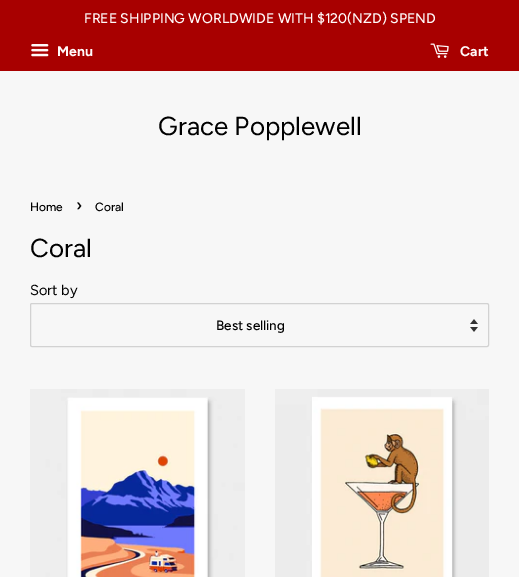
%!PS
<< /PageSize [519 577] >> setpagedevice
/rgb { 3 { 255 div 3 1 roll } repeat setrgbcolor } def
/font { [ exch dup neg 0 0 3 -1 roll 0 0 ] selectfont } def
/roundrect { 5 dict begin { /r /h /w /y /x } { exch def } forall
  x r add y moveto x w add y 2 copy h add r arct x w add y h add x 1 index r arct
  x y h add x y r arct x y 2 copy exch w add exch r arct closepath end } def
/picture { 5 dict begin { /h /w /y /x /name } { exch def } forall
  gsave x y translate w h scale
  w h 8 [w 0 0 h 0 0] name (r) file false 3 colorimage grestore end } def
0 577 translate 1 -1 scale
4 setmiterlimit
247 247 247 rgb
0 0 519 577 rectfill
168 0 0 rgb
0 0 519 71 rectfill
(img/1.rgb) 31 44 18 13 picture
(img/2.rgb) 430 43 19 15 picture
(img/3.rgb) 470 319 8 13 picture
210 210 210 rgb
30.5 303.5 458 43 1.5 roundrect stroke
(img/4.rgb) 30 389 215 188 picture
(img/5.rgb) 275 389 214 188 picture
/Figtree-Medium 14 font
255 249 249 rgb
84 23 moveto (FREE SHIPPING WORLDWIDE WITH $120\(NZD\) SPEND) show
/Figtree-Bold 14 font
57 56 moveto (Menu) show
460 56 moveto (Cart) show
/Figtree-Regular 26 font
0 0 0 rgb
158 135 moveto (Grace Popplewell) show
/Figtree-Medium 12 font
30 211 moveto (Home) show
/Figtree-Medium 17 font
76 211 moveto (›) show
/Figtree-Medium 12 font
95 211 moveto (Coral) show
/Figtree-Regular 26 font
30 257 moveto (Coral) show
/Figtree-Regular 14.5 font
30 295 moveto (Sort by) show
/Figtree-Medium 13.5 font
216 330 moveto (Best selling) show
showpage
